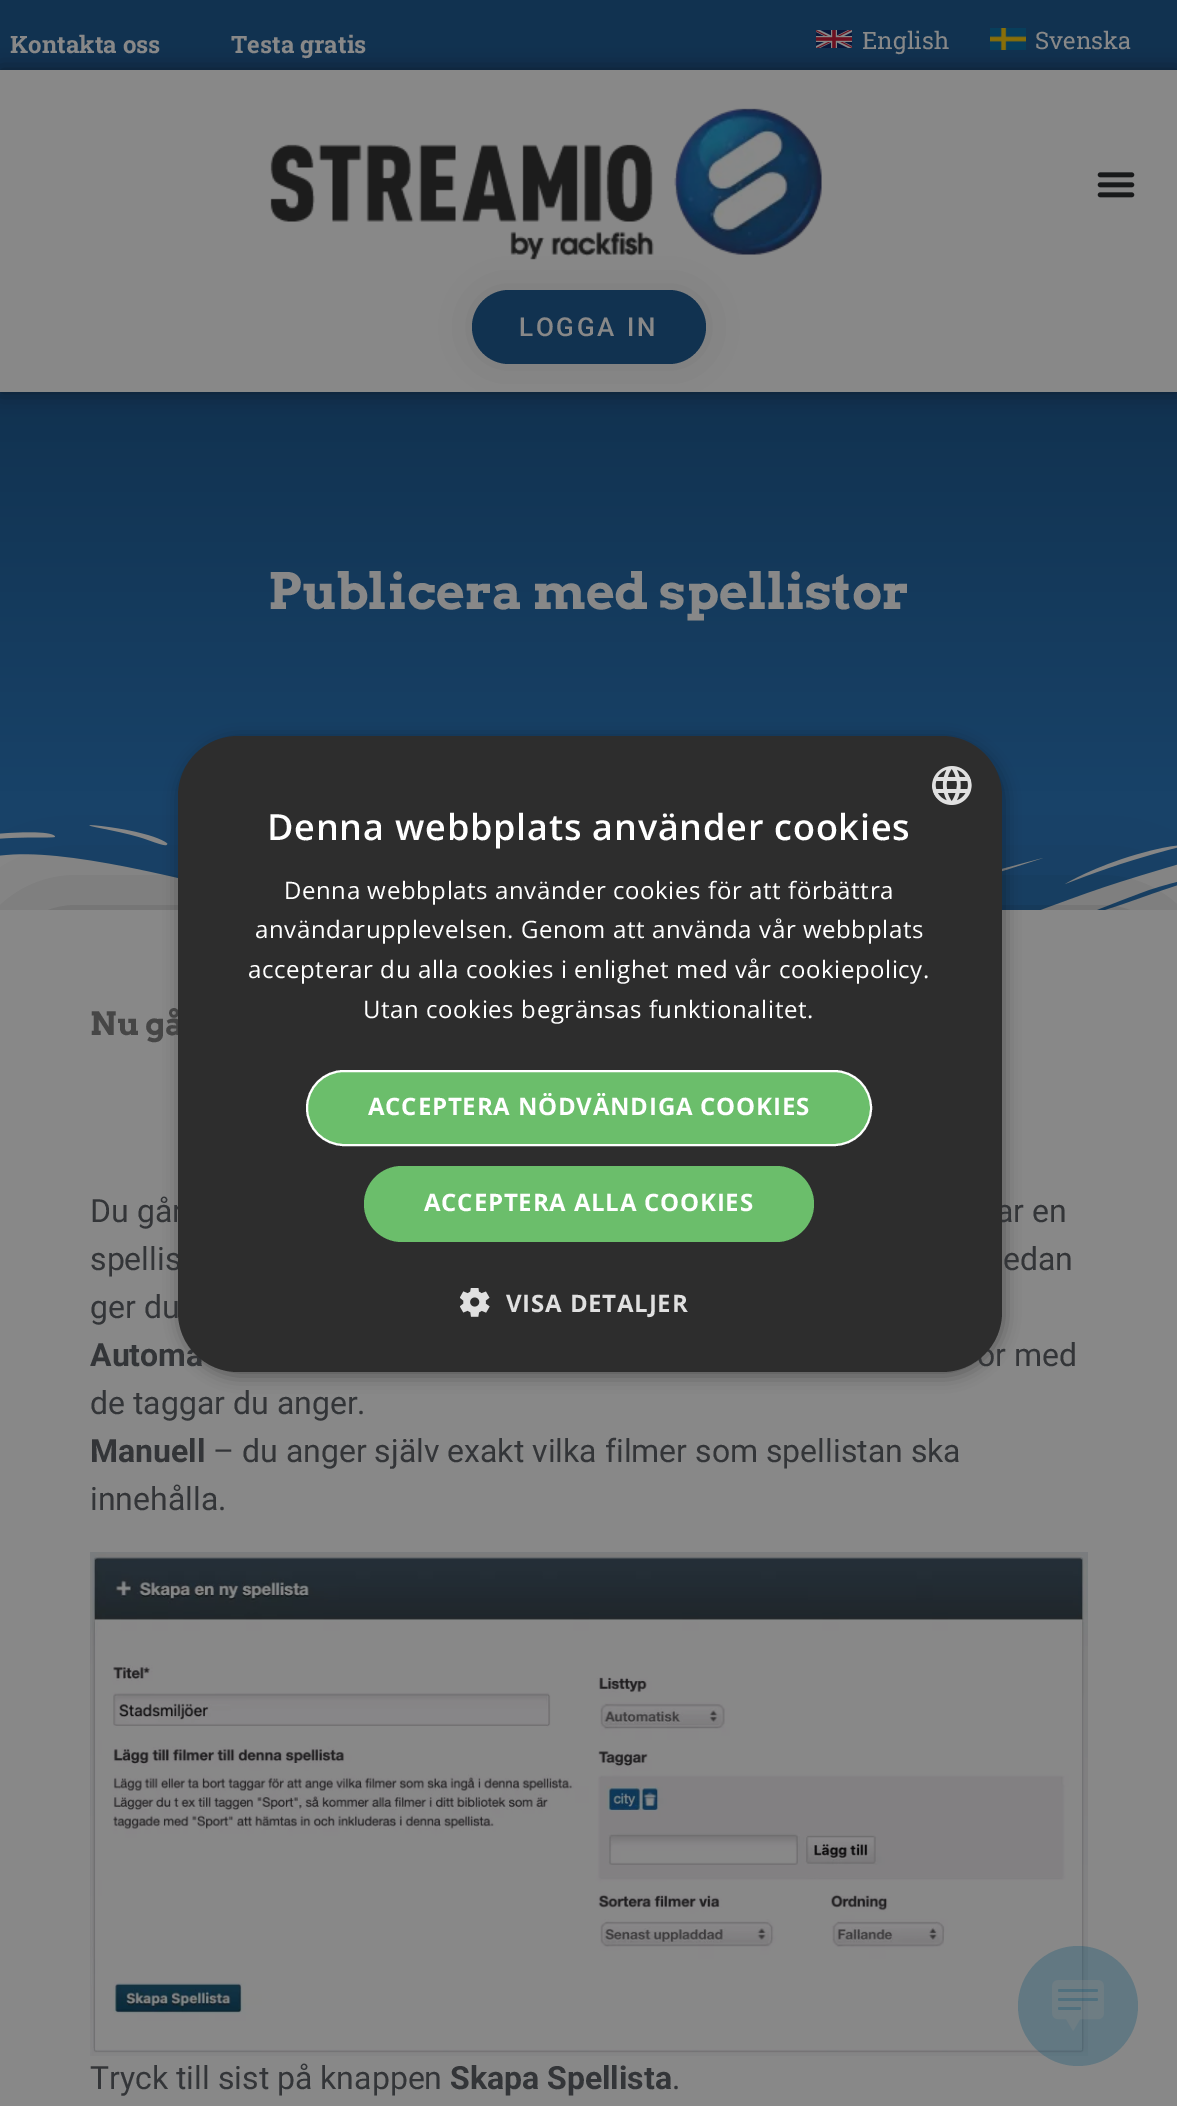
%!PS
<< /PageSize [1177 2106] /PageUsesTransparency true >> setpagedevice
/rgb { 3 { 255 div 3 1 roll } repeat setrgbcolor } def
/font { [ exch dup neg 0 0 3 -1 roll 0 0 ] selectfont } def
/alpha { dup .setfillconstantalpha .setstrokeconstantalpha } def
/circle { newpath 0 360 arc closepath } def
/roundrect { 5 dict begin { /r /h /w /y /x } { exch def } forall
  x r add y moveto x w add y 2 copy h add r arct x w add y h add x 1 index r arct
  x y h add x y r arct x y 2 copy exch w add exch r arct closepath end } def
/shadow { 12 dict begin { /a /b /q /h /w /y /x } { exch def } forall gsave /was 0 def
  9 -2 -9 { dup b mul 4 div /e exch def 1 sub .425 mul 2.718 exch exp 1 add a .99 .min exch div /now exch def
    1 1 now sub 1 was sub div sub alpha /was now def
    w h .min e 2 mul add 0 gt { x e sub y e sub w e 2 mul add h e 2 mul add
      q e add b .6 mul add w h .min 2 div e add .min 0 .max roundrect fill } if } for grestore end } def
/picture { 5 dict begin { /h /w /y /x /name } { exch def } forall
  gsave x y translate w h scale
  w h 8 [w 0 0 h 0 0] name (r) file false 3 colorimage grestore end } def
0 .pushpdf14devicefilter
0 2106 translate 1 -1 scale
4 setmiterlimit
136 136 136 rgb
0 0 1177 2106 rectfill
17 50 80 rgb
0 0 1177 70 rectfill
(img/1.rgb) 816 30 36 18 picture
(img/2.rgb) 990 28 36 22 picture
gsave 0 392 moveto 1177 392 lineto 1177 792 lineto 0 792 lineto closepath clip newpath
<< /ShadingType 2 /ColorSpace /DeviceRGB /Coords [589 392 589 792] /Extend [true true] /Function << /FunctionType 2 /Domain [0 1] /C0 [0.067 0.196 0.314] /C1 [0.094 0.259 0.408] /N 1 >> >> shfill grestore
gsave
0 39 moveto 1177 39 lineto 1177 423 lineto 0 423 lineto closepath 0 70 moveto 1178 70 lineto 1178 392 lineto 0 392 lineto closepath eoclip newpath
9 9 9 rgb
0 70 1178 322 0 10 0.5 shadow
grestore
(img/3.rgb) 270 108 552 152 picture
(img/4.rgb) 1097 172 38 26 picture
9 9 9 rgb
472 290 234 74 37 27 0.12 shadow
17 50 80 rgb
472 290 234 74 37 roundrect fill
(img/5.rgb) 0 792 1177 118 picture
9 9 9 rgb
40 950 1098 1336 0 60 0.5 shadow
136 136 136 rgb
0 910 1177 1196 rectfill
(img/6.rgb) 90 1552 998 504 picture
0 0 0 rgb
180 740 824 636 60 8 0.35 shadow
0.3 alpha
11 84 115 rgb
1078 2006 60 circle fill
1 alpha
(img/9.rgb) 1052 1980 52 51 picture
/RobotoSlab-Bold 24 font
136 136 136 rgb
10 53 moveto (Kontakta oss) show
231 53 moveto (Testa gratis) show
/RobotoSlab-Regular 24 font
862 49 moveto (English) show
1035 49 moveto (Svenska) show
/Roboto-Medium 26 font
519 336 moveto 2.75 0 (LOGGA IN) ashow
/Arvo-Bold 50 font
268 609 moveto (Publicera med spellistor) show
/Arvo-Bold 32 font
70 70 70 rgb
90 1035 moveto (Nu gå) show
/Roboto-Regular 32 font
51 53 56 rgb
[
  [(Du går) 90 1222]
  [(ar en) 996 1222]
  [(spellis) 90 1270]
  [(edan) 1003 1270]
  [(ger du) 90 1318]
] { aload pop moveto show } forall
/Roboto-Bold 32 font
90 1366 moveto (Automa) show
/Roboto-Regular 32 font
977 1366 moveto (or med) show
90 1414 moveto (de taggar du anger.) show
/Roboto-Bold 32 font
90 1462 moveto (Manuell) show
/Roboto-Regular 32 font
[
  [(– du anger själv exakt vilka filmer som spellistan ska) 213 1462]
  [(innehålla.) 90 1510]
  [(Tryck till sist på knappen) 90 2089]
] { aload pop moveto show } forall
/Roboto-Bold 32 font
450 2089 moveto (Skapa Spellista) show
/Roboto-Regular 32 font
672 2089 moveto (.) show
45 45 45 rgb
178 736 824 636 60 roundrect fill
(img/7.rgb) 932 766 40 39 picture
/OpenSans-SemiBold 36 font
255 255 255 rgb
267 840 moveto 0.8 0 (Denna webbplats använder cookies) ashow
/OpenSans-Regular 24 font
284 899 moveto 0.6 0 (Denna webbplats använder cookies för att förbättra) ashow
255 938 moveto 0.6 0 (användarupplevelsen. Genom att använda vår webbplats) ashow
248 978 moveto 0.6 0 (accepterar du alla cookies i enlighet med vår cookiepolicy.) ashow
363 1018 moveto 0.6 0 (Utan cookies begränsas funktionalitet.) ashow
107 190 107 rgb
307 1071 564 74 37 roundrect gsave fill grestore
255 255 255 rgb
2 setlinewidth
stroke
/OpenSans-Bold 24 font
368 1115 moveto 0.8 0 (ACCEPTERA NÖDVÄNDIGA COOKIES) ashow
107 190 107 rgb
364 1166 450 76 38 roundrect fill
255 255 255 rgb
424 1211 moveto 0.8 0 (ACCEPTERA ALLA COOKIES) ashow
(img/8.rgb) 460 1288 30 29 picture
224 224 224 rgb
506 1312 moveto 0.8 0 (VISA DETALJER) ashow
.poppdf14devicefilter showpage
